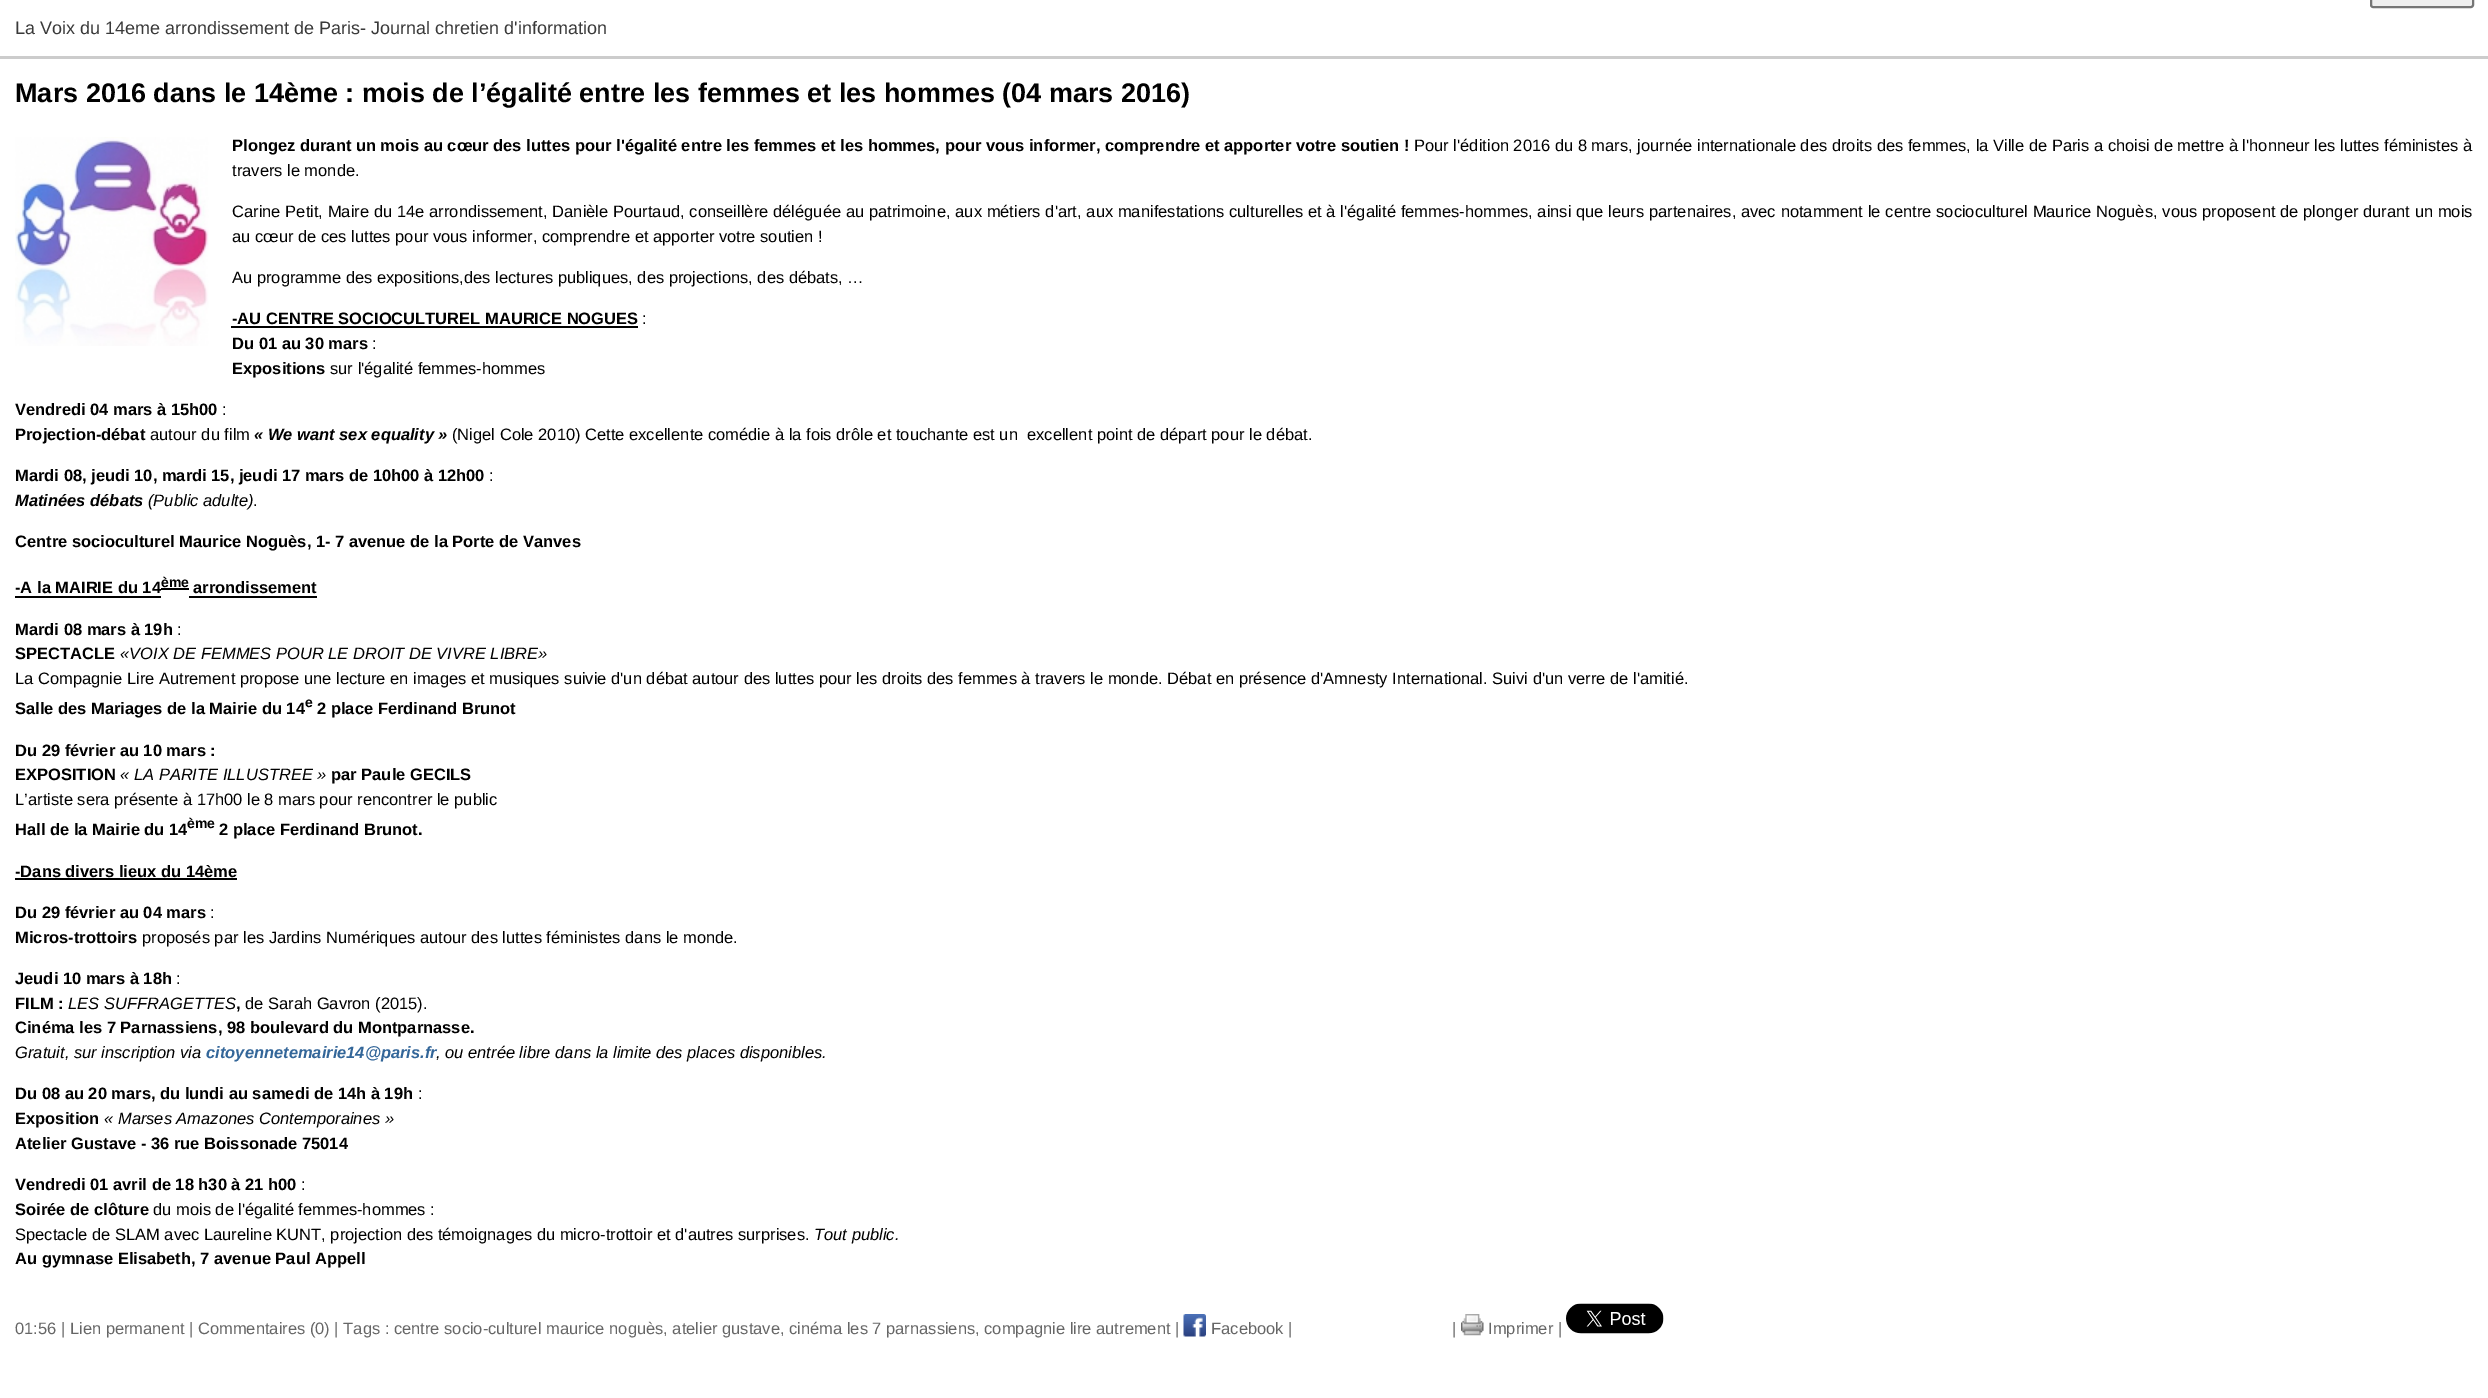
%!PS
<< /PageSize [2488 1398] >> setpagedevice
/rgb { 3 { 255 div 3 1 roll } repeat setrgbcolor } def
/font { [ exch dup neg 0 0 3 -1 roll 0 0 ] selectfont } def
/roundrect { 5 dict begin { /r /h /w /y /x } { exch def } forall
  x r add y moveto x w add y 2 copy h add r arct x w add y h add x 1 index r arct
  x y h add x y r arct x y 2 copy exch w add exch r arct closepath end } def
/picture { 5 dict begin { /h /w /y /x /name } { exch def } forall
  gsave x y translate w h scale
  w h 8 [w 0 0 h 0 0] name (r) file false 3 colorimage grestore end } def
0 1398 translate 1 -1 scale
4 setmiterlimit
255 255 255 rgb
0 0 2488 1398 rectfill
204 204 204 rgb
0 56 2488 3 rectfill
239 239 239 rgb
2371 -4 102 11 2 roundrect gsave fill grestore
118 118 118 rgb
2 setlinewidth
stroke
(img/1.rgb) 15 137 194 209 picture
[
  [231 326 407 2 0 0 0]
  [15 596 146 2 0 0 0]
  [161 588 28 2 0 0 0]
  [189 596 128 2 0 0 0]
  [15 878 222 2 0 0 0]
] { aload pop rgb rectfill } forall
(img/2.rgb) 1183 1314 23 23 picture
(img/3.rgb) 1461 1314 23 22 picture
(img/4.rgb) 1566 1303 98 31 picture
/LiberationSans-Regular 18 font
58 58 58 rgb
15 34 moveto (La Voix du 14eme arrondissement de Paris- Journal chretien d'information) show
/LiberationSans-Bold 27 font
0 0 0 rgb
15 102 moveto (Mars 2016 dans le 14ème : mois de l’égalité entre les femmes et les hommes \(04 mars 2016\)) show
/LiberationSans-Bold 16.5 font
232 151 moveto (Plongez durant un mois au cœur des luttes pour l'égalité entre les femmes et les hommes, pour vous informer, comprendre et apporter votre soutien !) show
/LiberationSans-Regular 16.5 font
1414 151 moveto (Pour l'édition 2016 du 8 mars, journée internationale des droits des femmes, la Ville de Paris a choisi de mettre à l'honneur les luttes féministes à) show
232 176 moveto (travers le monde.) show
232 217 moveto 0.2 0 32 (Carine Petit, Maire du 14e arrondissement, Danièle Pourtaud, conseillère déléguée au patrimoine, aux métiers d'art, aux manifestations culturelles et à l'égalité femmes-hommes, ainsi que leurs partenaires, avec notamment le centre socioculturel Maurice Noguès, vous proposent de plonger durant un mois) widthshow
232 242 moveto (au cœur de ces luttes pour vous informer, comprendre et apporter votre soutien !) show
232 283 moveto (Au programme des expositions,des lectures publiques, des projections, des débats, …) show
/LiberationSans-Bold 16.5 font
232 324 moveto (-AU CENTRE SOCIOCULTUREL MAURICE NOGUES) show
/LiberationSans-Regular 16.5 font
642 324 moveto (:) show
/LiberationSans-Bold 16.5 font
232 349 moveto (Du 01 au 30 mars) show
/LiberationSans-Regular 16.5 font
372 349 moveto (:) show
/LiberationSans-Bold 16.5 font
232 374 moveto (Expositions) show
/LiberationSans-Regular 16.5 font
330 374 moveto (sur l'égalité femmes-hommes) show
/LiberationSans-Bold 16.5 font
15 415 moveto (Vendredi 04 mars à 15h00) show
/LiberationSans-Regular 16.5 font
222 415 moveto (:) show
/LiberationSans-Bold 16.5 font
15 440 moveto (Projection-débat) show
/LiberationSans-Regular 16.5 font
150 440 moveto (autour du film) show
/LiberationSans-BoldItalic 16.5 font
254 440 moveto (« We want sex equality ») show
/LiberationSans-Regular 16.5 font
452 440 moveto (\(Nigel Cole 2010\) Cette excellente comédie à la fois drôle et touchante est un  excellent point de départ pour le débat.) show
/LiberationSans-Bold 16.5 font
15 481 moveto (Mardi 08, jeudi 10, mardi 15, jeudi 17 mars de 10h00 à 12h00) show
/LiberationSans-Regular 16.5 font
489 481 moveto (:) show
/LiberationSans-BoldItalic 16.5 font
15 506 moveto (Matinées débats) show
/LiberationSans-Italic 16.5 font
148 506 moveto (\(Public adulte\)) show
/LiberationSans-Regular 16.5 font
253 506 moveto (.) show
/LiberationSans-Bold 16.5 font
15 547 moveto (Centre socioculturel Maurice Noguès, 1- 7 avenue de la Porte de Vanves) show
15 593 moveto (-A la MAIRIE du 14) show
/LiberationSans-Bold 14 font
161 587 moveto (ème) show
/LiberationSans-Bold 16.5 font
193 593 moveto (arrondissement) show
15 635 moveto (Mardi 08 mars à 19h) show
/LiberationSans-Regular 16.5 font
177 635 moveto (:) show
/LiberationSans-Bold 16.5 font
15 659 moveto (SPECTACLE) show
/LiberationSans-Italic 16.5 font
120 659 moveto («VOIX DE FEMMES POUR LE DROIT DE VIVRE LIBRE») show
/LiberationSans-Regular 16.5 font
15 684 moveto (La Compagnie Lire Autrement propose une lecture en images et musiques suivie d'un débat autour des luttes pour les droits des femmes à travers le monde. Débat en présence d'Amnesty International. Suivi d'un verre de l'amitié.) show
/LiberationSans-Bold 16.5 font
15 714 moveto (Salle des Mariages de la Mairie du 14) show
/LiberationSans-Bold 14 font
305 707 moveto (e) show
/LiberationSans-Bold 16.5 font
[
  [(2 place Ferdinand Brunot) 317 714]
  [(Du 29 février au 10 mars :) 15 756]
  [(EXPOSITION) 15 780]
] { aload pop moveto show } forall
/LiberationSans-Italic 16.5 font
120 780 moveto (« LA PARITE ILLUSTREE ») show
/LiberationSans-Bold 16.5 font
331 780 moveto (par Paule GECILS) show
/LiberationSans-Regular 16.5 font
15 805 moveto (L’artiste sera présente à 17h00 le 8 mars pour rencontrer le public) show
/LiberationSans-Bold 16.5 font
15 835 moveto (Hall de la Mairie du 14) show
/LiberationSans-Bold 14 font
187 828 moveto (ème) show
/LiberationSans-Bold 16.5 font
[
  [(2 place Ferdinand Brunot.) 219 835]
  [(-Dans divers lieux du 14ème) 15 877]
  [(Du 29 février au 04 mars) 15 918]
] { aload pop moveto show } forall
/LiberationSans-Regular 16.5 font
210 918 moveto (:) show
/LiberationSans-Bold 16.5 font
15 943 moveto (Micros-trottoirs) show
/LiberationSans-Regular 16.5 font
142 943 moveto (proposés par les Jardins Numériques autour des luttes féministes dans le monde.) show
/LiberationSans-Bold 16.5 font
15 984 moveto (Jeudi 10 mars à 18h) show
/LiberationSans-Regular 16.5 font
176 984 moveto (:) show
/LiberationSans-Bold 16.5 font
15 1009 moveto (FILM :) show
/LiberationSans-Italic 16.5 font
68 1009 moveto (LES SUFFRAGETTES) show
/LiberationSans-Bold 16.5 font
236 1009 moveto (,) show
/LiberationSans-Regular 16.5 font
245 1009 moveto (de Sarah Gavron \(2015\).) show
/LiberationSans-Bold 16.5 font
15 1033 moveto (Cinéma les 7 Parnassiens, 98 boulevard du Montparnasse.) show
/LiberationSans-Italic 16.5 font
15 1058 moveto (Gratuit, sur inscription via) show
/LiberationSans-BoldItalic 16.5 font
51 102 153 rgb
206 1058 moveto (citoyennetemairie14@paris.fr) show
/LiberationSans-Italic 16.5 font
0 0 0 rgb
436 1058 moveto (, ou entrée libre dans la limite des places disponibles.) show
/LiberationSans-Bold 16.5 font
15 1099 moveto (Du 08 au 20 mars, du lundi au samedi de 14h à 19h) show
/LiberationSans-Regular 16.5 font
418 1099 moveto (:) show
/LiberationSans-Bold 16.5 font
15 1124 moveto (Exposition) show
/LiberationSans-Italic 16.5 font
104 1124 moveto (« Marses Amazones Contemporaines ») show
/LiberationSans-Bold 16.5 font
15 1149 moveto (Atelier Gustave - 36 rue Boissonade 75014) show
15 1190 moveto (Vendredi 01 avril de 18 h30 à 21 h00) show
/LiberationSans-Regular 16.5 font
301 1190 moveto (:) show
/LiberationSans-Bold 16.5 font
15 1215 moveto (Soirée de clôture) show
/LiberationSans-Regular 16.5 font
153 1215 moveto (du mois de l'égalité femmes-hommes :) show
15 1240 moveto (Spectacle de SLAM avec Laureline KUNT, projection des témoignages du micro-trottoir et d'autres surprises.) show
/LiberationSans-Italic 16.5 font
814 1240 moveto (Tout public.) show
/LiberationSans-Bold 16.5 font
15 1264 moveto (Au gymnase Elisabeth, 7 avenue Paul Appell) show
/LiberationSans-Regular 16.5 font
102 102 102 rgb
[
  [(01:56 | Lien permanent | Commentaires \(0\) | Tags : centre socio-culturel maurice noguès, atelier gustave, cinéma les 7 parnassiens, compagnie lire autrement |) 15 1334]
  [(Facebook |) 1211 1334]
  [(|) 1452 1334]
  [(Imprimer |) 1488 1334]
] { aload pop moveto show } forall
showpage
